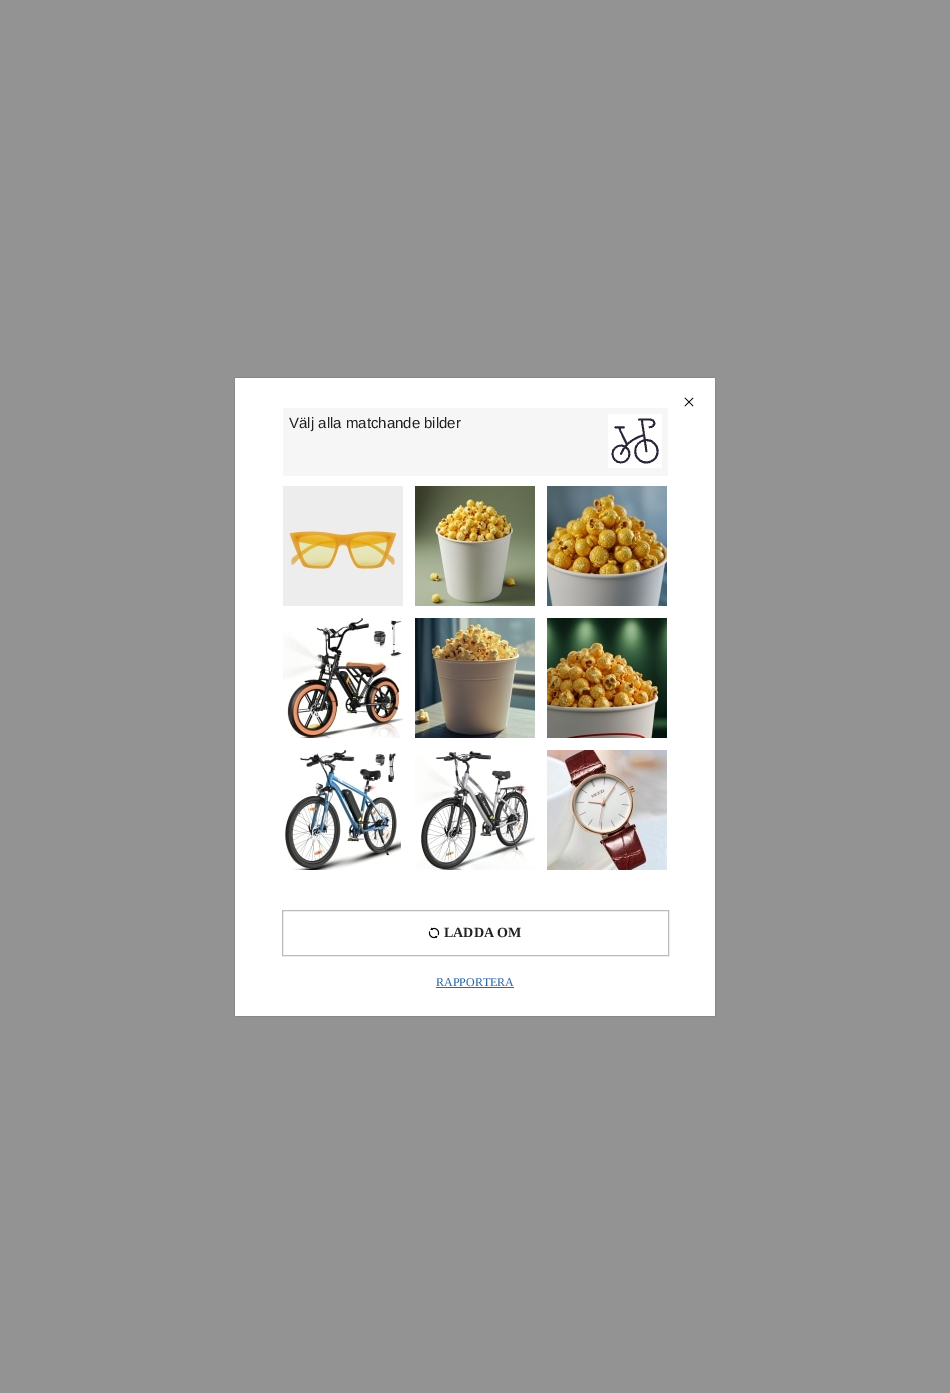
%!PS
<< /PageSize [950 1393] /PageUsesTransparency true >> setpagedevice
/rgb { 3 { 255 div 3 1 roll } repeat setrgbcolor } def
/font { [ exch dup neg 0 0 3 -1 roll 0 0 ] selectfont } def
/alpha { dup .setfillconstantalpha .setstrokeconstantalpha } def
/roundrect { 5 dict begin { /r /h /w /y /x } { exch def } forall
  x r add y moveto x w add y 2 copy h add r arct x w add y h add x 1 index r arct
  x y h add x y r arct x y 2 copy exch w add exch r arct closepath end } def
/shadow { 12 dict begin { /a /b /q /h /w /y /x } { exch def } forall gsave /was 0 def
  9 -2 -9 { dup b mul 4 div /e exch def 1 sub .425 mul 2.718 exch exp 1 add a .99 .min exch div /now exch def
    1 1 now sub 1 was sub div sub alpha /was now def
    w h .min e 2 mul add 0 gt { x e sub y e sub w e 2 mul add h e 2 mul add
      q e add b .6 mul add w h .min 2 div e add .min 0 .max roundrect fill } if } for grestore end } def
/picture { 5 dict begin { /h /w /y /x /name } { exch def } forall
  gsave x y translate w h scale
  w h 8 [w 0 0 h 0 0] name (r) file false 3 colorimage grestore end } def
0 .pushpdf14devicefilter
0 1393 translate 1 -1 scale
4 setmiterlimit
147 147 147 rgb
0 0 950 1393 rectfill
0 0 0 rgb
235 378 480 638 0 0.5 0.3 shadow
255 255 255 rgb
235 378 480 638 rectfill
(img/1.rgb) 684 397 10 10 picture
246 246 246 rgb
283 408 385 68 rectfill
255 255 255 rgb
608 414 54 54 rectfill
(img/2.rgb) 611 418 48 46 picture
(img/3.rgb) 283 486 120 120 picture
(img/4.rgb) 415 486 120 120 picture
(img/5.rgb) 547 486 120 120 picture
(img/6.rgb) 283 618 120 120 picture
(img/7.rgb) 415 618 120 120 picture
(img/8.rgb) 547 618 120 120 picture
(img/9.rgb) 284 750 117 120 picture
(img/10.rgb) 415 750 120 120 picture
(img/11.rgb) 547 750 120 120 picture
187 187 187 rgb
282.5 910.5 386 45 rectstroke
(img/12.rgb) 428 927 12 12 picture
45 104 168 rgb
436 987 78 1 rectfill
/LiberationSans-Regular 15 font
34 34 34 rgb
289 428 moveto (Välj alla matchande bilder) show
/LiberationSerif-Bold 14 font
444 937 moveto (LADDA OM) show
/LiberationSerif-Regular 12 font
45 104 168 rgb
436 986 moveto (RAPPORTERA) show
.poppdf14devicefilter showpage
